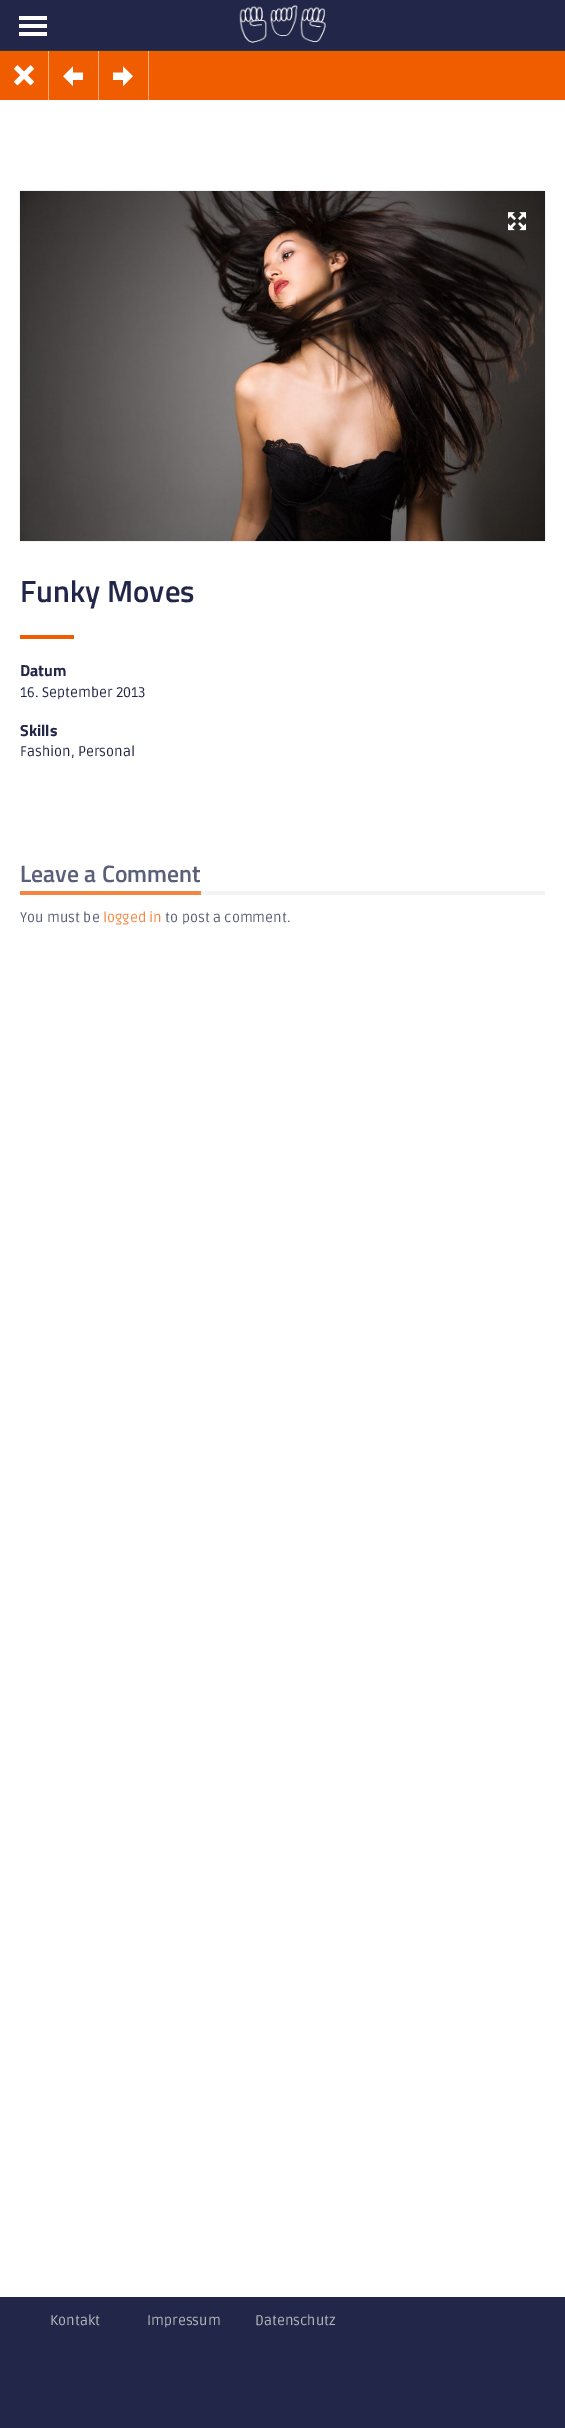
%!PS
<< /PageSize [565 2428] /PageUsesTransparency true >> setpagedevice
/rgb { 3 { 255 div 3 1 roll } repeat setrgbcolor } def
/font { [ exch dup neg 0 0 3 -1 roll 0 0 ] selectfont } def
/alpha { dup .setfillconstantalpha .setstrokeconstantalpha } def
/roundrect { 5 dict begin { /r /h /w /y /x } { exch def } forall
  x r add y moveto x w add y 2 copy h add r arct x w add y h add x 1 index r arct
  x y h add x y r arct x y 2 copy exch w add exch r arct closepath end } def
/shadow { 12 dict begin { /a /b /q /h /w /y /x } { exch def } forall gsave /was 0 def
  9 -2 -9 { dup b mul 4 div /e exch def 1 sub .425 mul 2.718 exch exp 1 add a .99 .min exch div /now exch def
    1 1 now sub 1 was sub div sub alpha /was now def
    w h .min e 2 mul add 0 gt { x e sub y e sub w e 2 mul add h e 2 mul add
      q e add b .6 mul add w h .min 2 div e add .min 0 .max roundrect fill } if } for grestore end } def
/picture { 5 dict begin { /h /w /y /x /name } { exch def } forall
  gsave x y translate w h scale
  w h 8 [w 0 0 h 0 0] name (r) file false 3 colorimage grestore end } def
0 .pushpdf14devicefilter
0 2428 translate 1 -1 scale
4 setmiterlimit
255 255 255 rgb
0 0 565 2428 rectfill
[
  [0 0 565 50 34 39 74]
  [0 51 565 49 240 92 0]
  [48 50 1 50 248 174 128]
  [98 50 1 50 248 174 128]
  [148 50 1 50 248 174 128]
  [0 50 565 1 39 55 60]
  [19 16 28 4 255 255 255]
  [19 24 28 4 255 255 255]
  [19 32 28 4 255 255 255]
] { aload pop rgb rectfill } forall
(img/1.rgb) 239 5 87 38 picture
(img/2.rgb) 14 65 20 21 picture
(img/3.rgb) 63 66 20 21 picture
(img/4.rgb) 113 66 20 21 picture
0 0 0 rgb
20 191 525 350 0 0.5 0.2 shadow
(img/5.rgb) 20 191 525 350 picture
(img/6.rgb) 508 212 18 19 picture
[
  [20 635 54 4 240 92 0]
  [20 891 181 4 244 134 66]
  [201 891 344 4 244 244 244]
  [0 2297 565 131 34 39 74]
] { aload pop rgb rectfill } forall
/TitilliumWeb-SemiBold 30.75 font
20 602 moveto (Funky Moves) show
/TitilliumWeb-Bold 16 font
20 676 moveto (Datum) show
/Ruda-Regular 14 font
20 697 moveto (16. September 2013) show
/TitilliumWeb-Bold 16 font
20 736 moveto (Skills) show
/Ruda-Regular 14 font
20 756 moveto (Fashion, Personal) show
/TitilliumWeb-SemiBold 23.75 font
91 95 121 rgb
20 882 moveto (Leave a Comment) show
/Ruda-Regular 14 font
20 922 moveto (You must be) show
244 134 66 rgb
103 922 moveto (logged in) show
91 95 121 rgb
165 922 moveto (to post a comment.) show
181 181 181 rgb
[
  [(Kontakt) 50 2325]
  [(Impressum) 147 2325]
  [(Datenschutz) 255 2325]
] { aload pop moveto show } forall
.poppdf14devicefilter showpage
